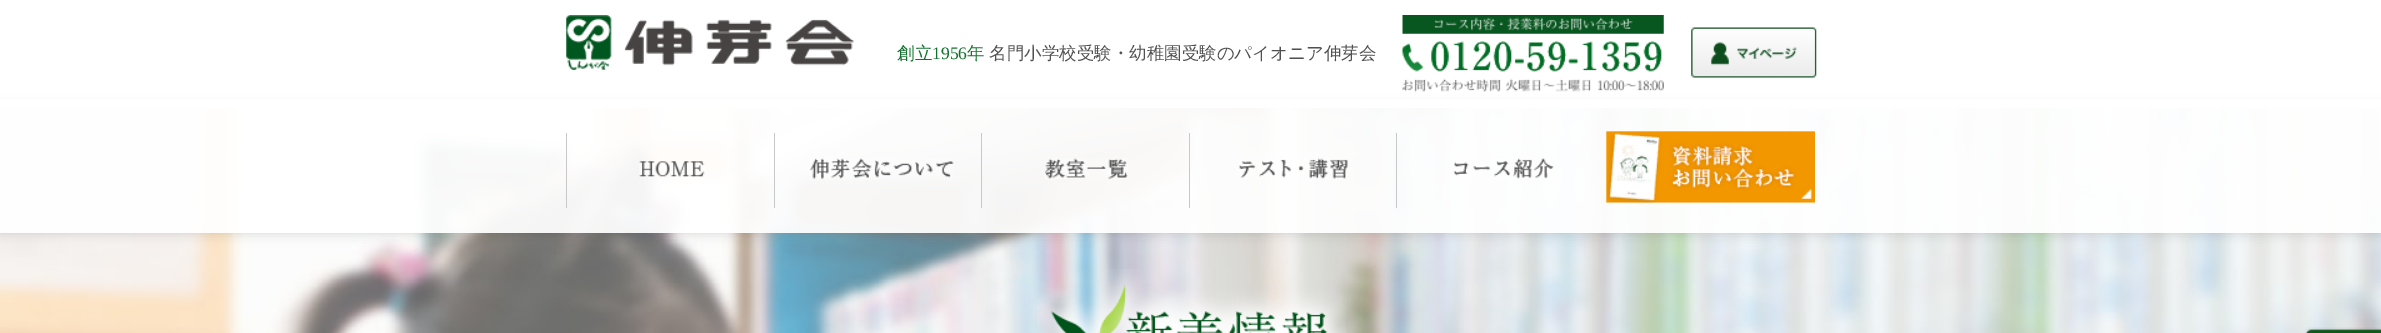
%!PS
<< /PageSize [2381 333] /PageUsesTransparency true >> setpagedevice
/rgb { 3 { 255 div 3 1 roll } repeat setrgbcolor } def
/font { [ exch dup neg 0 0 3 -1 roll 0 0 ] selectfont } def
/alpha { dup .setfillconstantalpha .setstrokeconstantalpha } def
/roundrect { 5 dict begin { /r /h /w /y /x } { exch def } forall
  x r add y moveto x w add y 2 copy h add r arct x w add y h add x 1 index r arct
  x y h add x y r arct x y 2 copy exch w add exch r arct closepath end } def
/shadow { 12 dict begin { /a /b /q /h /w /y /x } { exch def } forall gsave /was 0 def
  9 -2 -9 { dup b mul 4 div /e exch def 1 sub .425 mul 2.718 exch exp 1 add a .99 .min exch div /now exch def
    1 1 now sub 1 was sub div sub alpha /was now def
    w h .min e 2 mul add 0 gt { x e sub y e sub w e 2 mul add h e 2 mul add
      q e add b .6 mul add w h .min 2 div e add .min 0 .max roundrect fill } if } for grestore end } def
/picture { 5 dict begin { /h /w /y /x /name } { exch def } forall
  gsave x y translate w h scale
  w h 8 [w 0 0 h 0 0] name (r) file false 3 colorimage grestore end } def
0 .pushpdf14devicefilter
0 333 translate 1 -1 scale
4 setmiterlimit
255 255 255 rgb
0 0 2381 333 rectfill
(img/10.rgb) 0 108 2381 225 picture
gsave
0 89 moveto 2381 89 lineto 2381 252 lineto 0 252 lineto closepath 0 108 moveto 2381 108 lineto 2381 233 lineto 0 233 lineto closepath eoclip newpath
0 0 0 rgb
0 108 2381 125 0 6 0.15 shadow
grestore
0 99 2381 9 rectfill
(img/1.rgb) 566 15 288 55 picture
(img/2.rgb) 1402 15 262 77 picture
(img/3.rgb) 1691 27 126 51 picture
0.93 alpha
0 108 2381 125 rectfill
1 alpha
200 200 200 rgb
566 133 1 75 rectfill
(img/4.rgb) 639 161 66 16 picture
774 133 1 75 rectfill
(img/5.rgb) 809 158 145 21 picture
981 133 1 75 rectfill
(img/6.rgb) 1045 158 83 21 picture
1189 133 1 75 rectfill
(img/7.rgb) 1238 158 110 21 picture
1396 133 1 75 rectfill
(img/8.rgb) 1453 158 101 21 picture
(img/9.rgb) 1606 131 209 73 picture
(img/11.rgb) 1037 269 309 64 picture
(img/12.rgb) 2305 327 76 6 picture
/WenQuanYiZenHei-Medium 17.5 font
16 114 43 rgb
897 59 moveto (創立) show
/LiberationSerif-Regular 17.5 font
932 59 moveto (1956) show
/WenQuanYiZenHei-Medium 17.5 font
967 59 moveto (年) show
80 80 80 rgb
989 59 moveto (名門小学校受験・幼稚園受験のパイオニア伸芽会) show
.poppdf14devicefilter showpage
